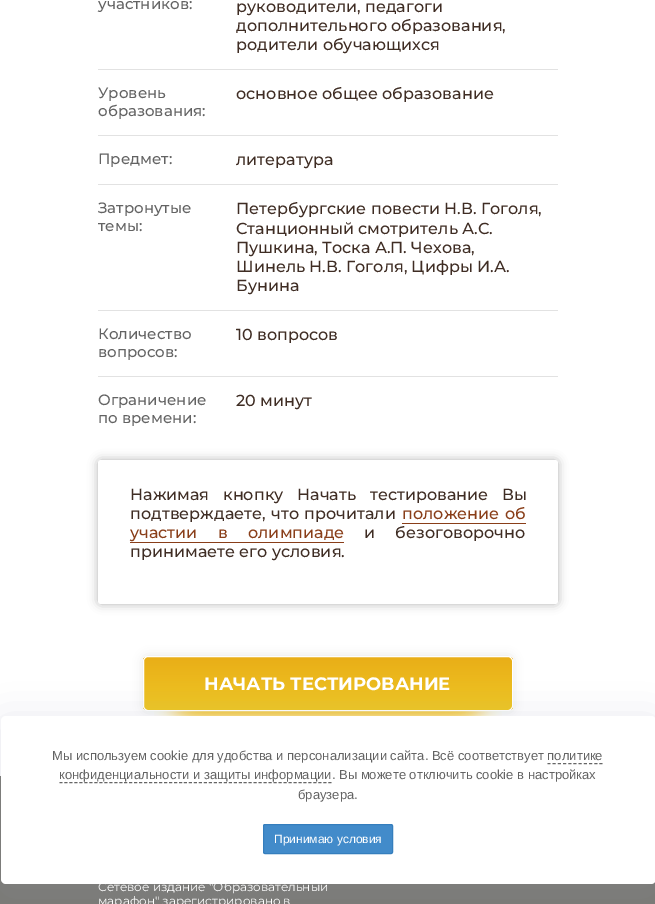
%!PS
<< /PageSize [655 904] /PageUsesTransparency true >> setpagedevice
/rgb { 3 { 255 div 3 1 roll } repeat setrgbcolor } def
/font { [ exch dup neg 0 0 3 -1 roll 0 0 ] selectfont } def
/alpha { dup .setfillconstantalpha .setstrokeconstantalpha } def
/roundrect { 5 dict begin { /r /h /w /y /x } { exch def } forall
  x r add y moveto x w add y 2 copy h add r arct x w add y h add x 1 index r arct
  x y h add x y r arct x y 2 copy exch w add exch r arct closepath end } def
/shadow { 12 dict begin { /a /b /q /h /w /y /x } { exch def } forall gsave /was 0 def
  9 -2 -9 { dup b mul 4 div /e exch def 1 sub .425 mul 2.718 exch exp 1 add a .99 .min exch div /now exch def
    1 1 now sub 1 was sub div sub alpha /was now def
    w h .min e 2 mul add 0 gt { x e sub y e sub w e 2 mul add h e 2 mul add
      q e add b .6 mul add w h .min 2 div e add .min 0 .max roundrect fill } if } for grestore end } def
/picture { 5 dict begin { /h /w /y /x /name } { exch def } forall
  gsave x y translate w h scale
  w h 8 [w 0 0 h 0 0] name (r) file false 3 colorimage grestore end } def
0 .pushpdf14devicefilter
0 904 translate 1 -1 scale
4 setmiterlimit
255 255 255 rgb
0 0 655 904 rectfill
[
  [98 69 460 1 226 226 226]
  [98 135 460 1 226 226 226]
  [98 184 460 1 226 226 226]
  [98 310 460 1 226 226 226]
  [98 376 460 1 226 226 226]
] { aload pop rgb rectfill } forall
0 0 0 rgb
98 460 460 144 3 5 0.3 shadow
255 255 255 rgb
98 460 460 144 3 roundrect fill
137 62 25 rgb
402 523 124 1 rectfill
130 542 214 1 rectfill
(img/1.rgb) 154 711 348 5 picture
0 0 0 rgb
143 656 370 55 5 5 0.1 shadow
gsave
143 656 370 55 5 roundrect clip newpath
gsave 143 657 moveto 513 657 lineto 513 710 lineto 143 710 lineto closepath clip newpath
<< /ShadingType 2 /ColorSpace /DeviceRGB /Coords [328 710 328 657] /Extend [true true] /Function << /FunctionType 2 /Domain [0 1] /C0 [0.937 0.776 0.129] /C1 [0.914 0.682 0.094] /N 1 >> >> shfill grestore
grestore
255 255 255 rgb
143.5 656.5 369 54 4.5 roundrect stroke
121 120 116 rgb
0 776 655 128 rectfill
140 152 164 rgb
-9 716 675 188 15 20 0.18 shadow
255 255 255 rgb
1 716 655 168 5 roundrect fill
102 102 102 rgb
[3 2.2] 0 setdash
547.5 763.5 moveto 602.5 763.5 lineto stroke
[3 1.98] 0 setdash
59.5 782.5 moveto 331.5 782.5 lineto stroke
66 139 202 rgb
263.5 824.5 129 29 1.5 roundrect gsave fill grestore
53 126 189 rgb
[] 0 setdash
stroke
/Montserrat-Medium 15 font
99 99 99 rgb
98 9 moveto (участников:) show
/Montserrat-Medium 16 font
63 45 36 rgb
[
  [(руководители, педагоги) 236 12]
  [(дополнительного образования,) 236 31]
  [(родители обучающихся) 236 50]
] { aload pop moveto show } forall
/Montserrat-Medium 15 font
99 99 99 rgb
98 98 moveto (Уровень) show
98 116 moveto (образования:) show
/Montserrat-Medium 16 font
63 45 36 rgb
236 99 moveto (основное общее образование) show
/Montserrat-Medium 15 font
99 99 99 rgb
98 164 moveto (Предмет:) show
/Montserrat-Medium 16 font
63 45 36 rgb
236 165 moveto (литература) show
/Montserrat-Medium 15 font
99 99 99 rgb
98 213 moveto (Затронутые) show
98 231 moveto (темы:) show
/Montserrat-Medium 16 font
63 45 36 rgb
[
  [(Петербургские повести Н.В. Гоголя,) 236 214]
  [(Станционный смотритель А.С.) 236 234]
  [(Пушкина, Тоска А.П. Чехова,) 236 253]
  [(Шинель Н.В. Гоголя, Цифры И.А.) 236 272]
  [(Бунина) 236 291]
] { aload pop moveto show } forall
/Montserrat-Medium 15 font
99 99 99 rgb
98 339 moveto (Количество) show
98 357 moveto (вопросов:) show
/Montserrat-Medium 16 font
63 45 36 rgb
236 340 moveto (10 вопросов) show
/Montserrat-Medium 15 font
99 99 99 rgb
98 405 moveto (Ограничение) show
98 423 moveto (по времени:) show
/Montserrat-Medium 16 font
63 45 36 rgb
236 406 moveto (20 минут) show
130 500 moveto 9.5 0 32 (Нажимая кнопку Начать тестирование Вы) widthshow
130 519 moveto 1 0 32 (подтверждаете, что прочитали) widthshow
137 62 25 rgb
402 519 moveto 1 0 32 (положение об) widthshow
130 538 moveto 16 0 32 (участии в олимпиаде) widthshow
63 45 36 rgb
364 538 moveto 16 0 32 (и безоговорочно) widthshow
130 557 moveto (принимаете его условия.) show
/Montserrat-Bold 18 font
255 255 255 rgb
204 690 moveto (НАЧАТЬ ТЕСТИРОВАНИЕ) show
/LiberationSans-Regular 13 font
99 99 99 rgb
[
  [(Мы используем cookie для удобства и персонализации сайта. Всё соответствует политике) 52 760]
  [(конфиденциальности и защиты информации. Вы можете отключить cookie в настройках) 59 779]
  [(браузера.) 298 799]
] { aload pop moveto show } forall
/LiberationSans-Regular 12 font
255 255 255 rgb
274 843 moveto (Принимаю условия) show
/Montserrat-Regular 12 font
98 891 moveto (Сетевое издание "Образовательный) show
98 905 moveto (марафон" зарегистрировано в) show
.poppdf14devicefilter showpage
